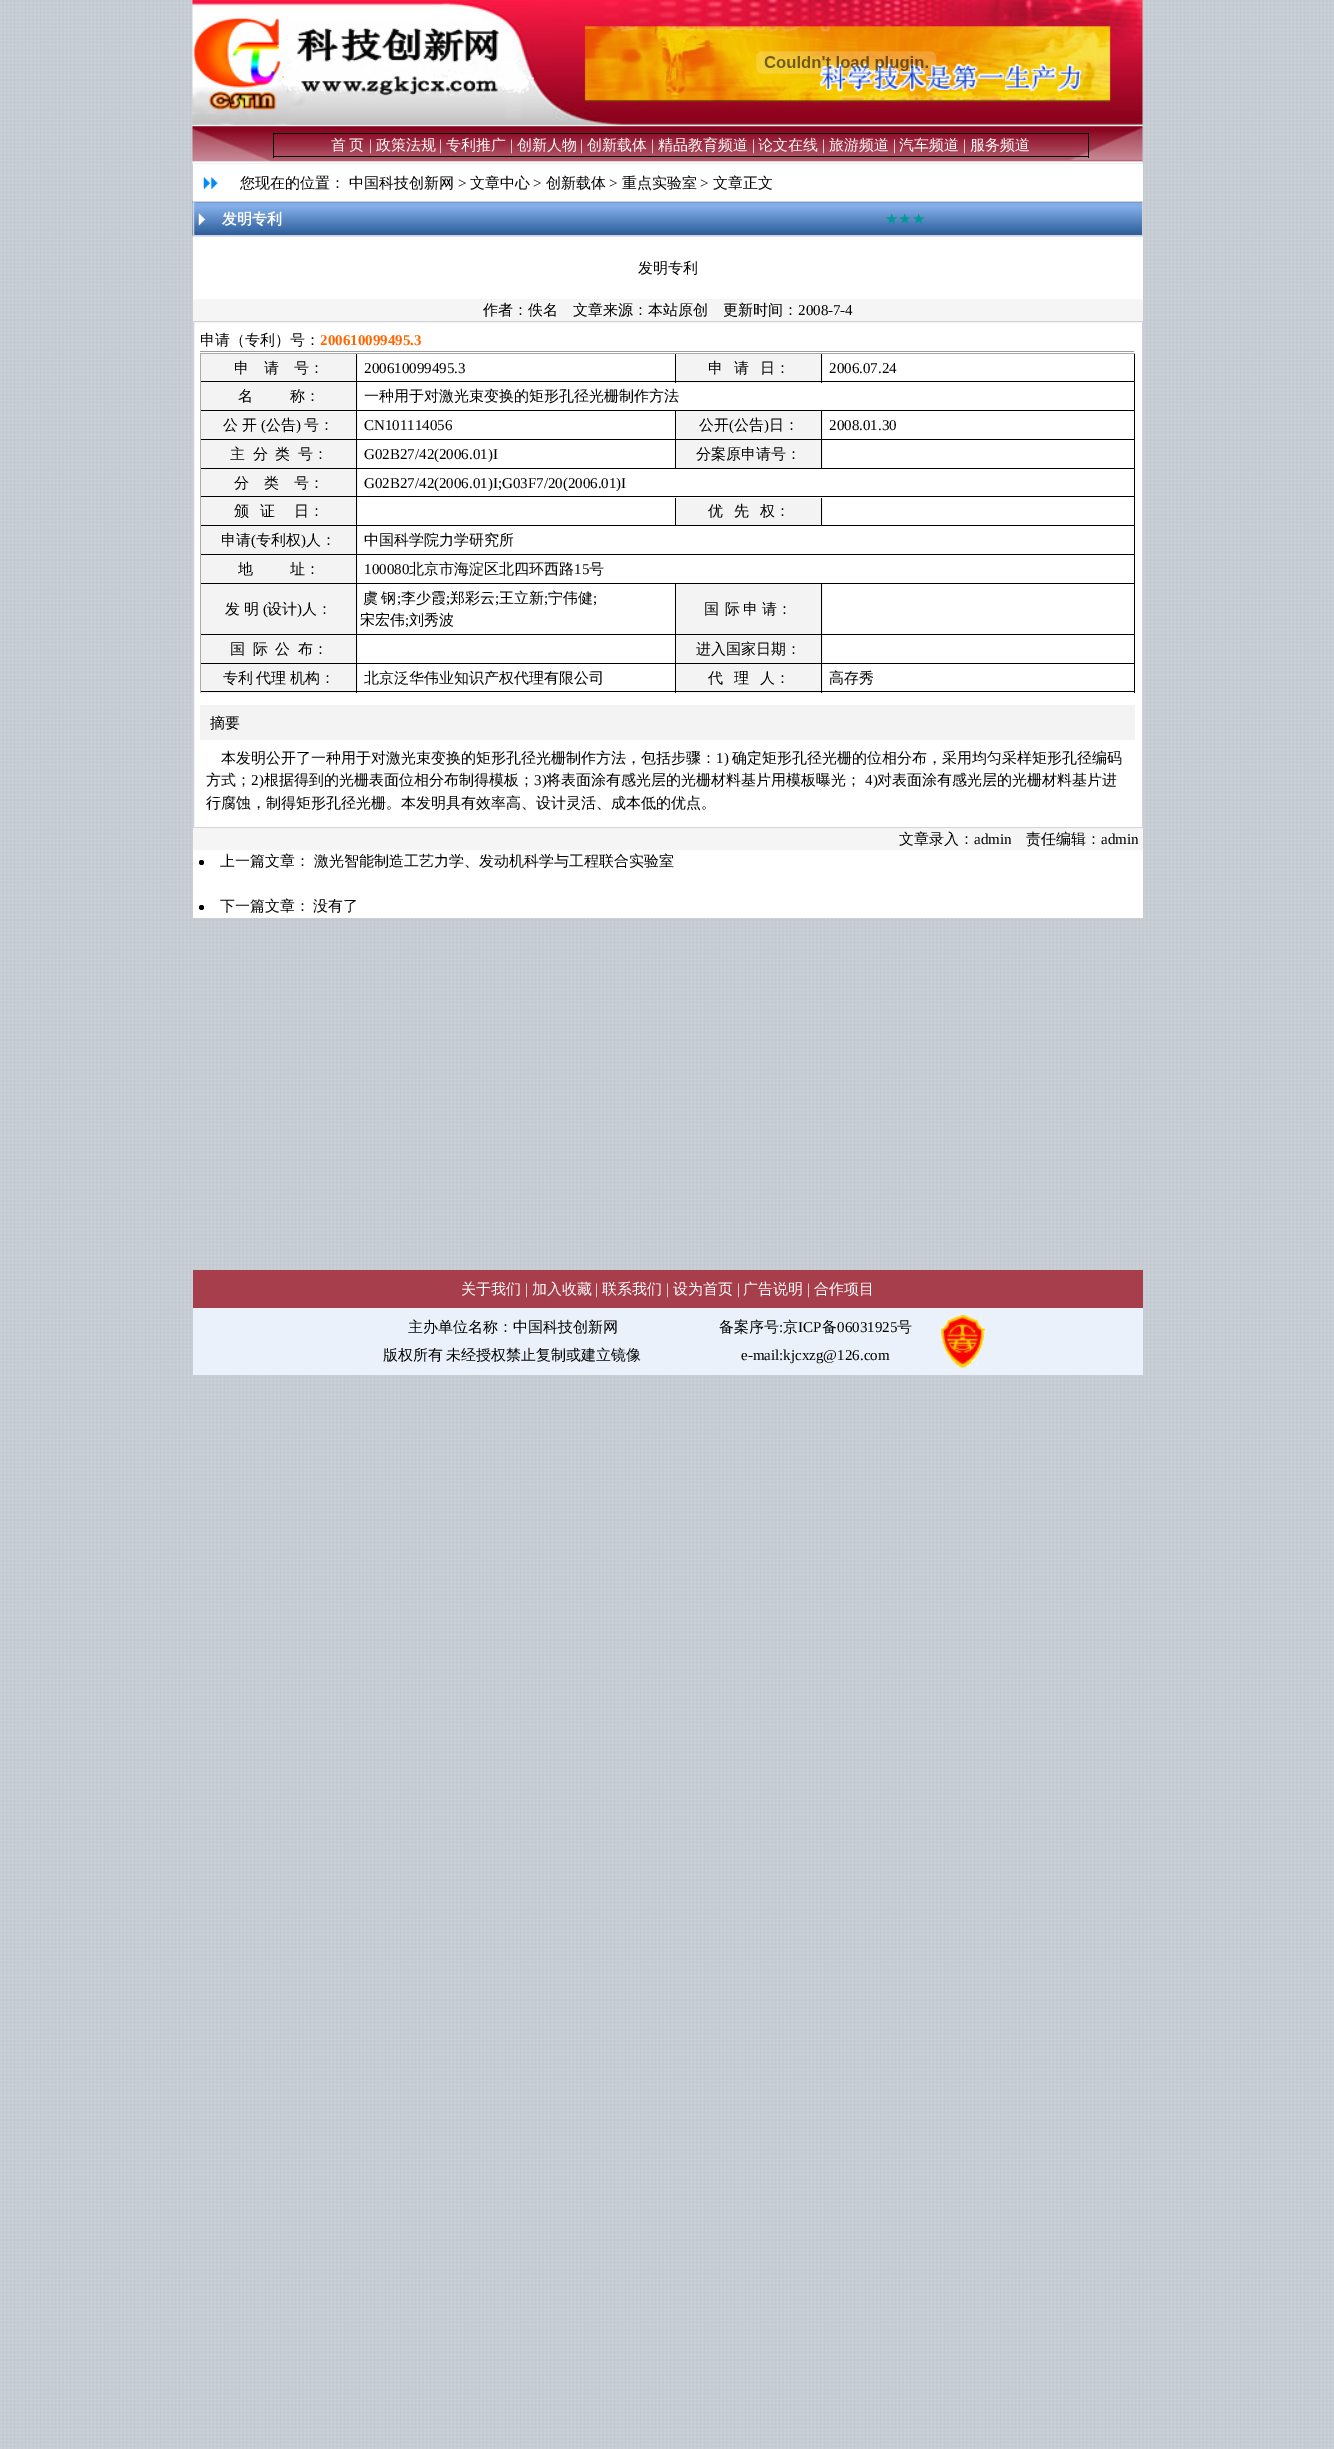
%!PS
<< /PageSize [1334 2449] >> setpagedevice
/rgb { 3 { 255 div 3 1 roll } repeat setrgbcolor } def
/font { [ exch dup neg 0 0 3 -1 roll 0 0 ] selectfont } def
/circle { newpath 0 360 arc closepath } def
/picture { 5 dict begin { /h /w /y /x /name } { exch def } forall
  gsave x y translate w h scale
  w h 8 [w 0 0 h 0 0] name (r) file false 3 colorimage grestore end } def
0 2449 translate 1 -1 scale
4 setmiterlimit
255 255 255 rgb
0 0 1334 2449 rectfill
(img/1.rgb) 0 0 1334 2449 picture
(img/2.rgb) 192 0 951 127 picture
(img/3.rgb) 756 51 181 23 picture
(img/4.rgb) 192 126 951 38 picture
[
  [273 133 816 1 0 0 0]
  [273 133 1 25 0 0 0]
  [1088 134 1 24 0 0 0]
  [274 156 815 1 0 0 0]
  [193 164 950 37 255 255 255]
] { aload pop rgb rectfill } forall
(img/5.rgb) 203 177 15 12 picture
193 236 950 63 rectfill
(img/6.rgb) 192 201 951 36 picture
210 211 217 rgb
193.5 201.5 949 34 rectstroke
(img/7.rgb) 198 213 8 13 picture
245 245 245 rgb
193 299 950 22 rectfill
255 255 255 rgb
193 322 950 596 rectfill
210 211 217 rgb
193.5 321.5 949 506 rectstroke
[
  [200 351 935 1 159 159 159]
  [1134 351 1 1 238 238 238]
  [200 353 935 1 170 170 170]
  [200 353 1 340 170 170 170]
  [201 354 157 56 244 243 243]
  [356 354 1 57 0 0 0]
  [201 381 157 1 0 0 0]
  [675 354 1 29 0 0 0]
  [358 381 318 1 0 0 0]
  [676 354 147 29 244 243 243]
  [821 354 1 29 0 0 0]
  [676 381 147 1 0 0 0]
  [1134 354 1 339 0 0 0]
  [823 381 312 1 0 0 0]
  [201 410 934 1 0 0 0]
  [201 411 157 28 244 243 243]
  [356 411 1 29 0 0 0]
  [201 439 157 1 0 0 0]
  [675 411 1 58 0 0 0]
  [358 439 318 1 0 0 0]
  [676 411 147 28 244 243 243]
  [821 411 1 29 0 0 0]
  [676 439 459 1 0 0 0]
  [201 440 157 28 244 243 243]
  [356 440 1 29 0 0 0]
  [201 468 475 1 0 0 0]
  [676 440 147 28 244 243 243]
  [821 440 1 29 0 0 0]
  [676 468 459 1 0 0 0]
  [201 469 157 56 244 243 243]
  [356 469 1 57 0 0 0]
  [201 496 934 1 0 0 0]
  [201 525 157 1 0 0 0]
  [675 498 1 28 0 0 0]
  [358 525 318 1 0 0 0]
  [676 498 147 27 244 243 243]
  [821 498 1 28 0 0 0]
  [676 525 459 1 0 0 0]
  [201 526 157 28 244 243 243]
  [356 526 1 29 0 0 0]
  [201 554 934 1 0 0 0]
  [201 555 157 28 244 243 243]
  [356 555 1 29 0 0 0]
  [201 583 934 1 0 0 0]
  [201 584 157 50 244 243 243]
  [356 584 1 51 0 0 0]
  [201 634 157 1 0 0 0]
  [675 584 1 109 0 0 0]
  [358 634 318 1 0 0 0]
  [676 584 147 50 244 243 243]
  [821 584 1 51 0 0 0]
  [676 634 459 1 0 0 0]
  [201 635 157 28 244 243 243]
  [356 635 1 29 0 0 0]
  [201 663 475 1 0 0 0]
  [676 635 147 28 244 243 243]
  [821 635 1 29 0 0 0]
  [676 663 459 1 0 0 0]
  [201 664 157 29 244 243 243]
  [356 664 1 29 0 0 0]
  [201 691 475 1 0 0 0]
  [676 664 147 29 244 243 243]
  [821 664 1 29 0 0 0]
  [676 691 459 1 0 0 0]
  [200 705 935 35 244 243 243]
  [193 828 950 22 245 245 245]
] { aload pop rgb rectfill } forall
0 0 0 rgb
201.5 862.5 2.5 circle fill
201.5 907.5 2.5 circle fill
166 62 75 rgb
193 1270 950 38 rectfill
234 241 251 rgb
193 1308 950 67 rectfill
(img/8.rgb) 941 1315 44 53 picture
/WenQuanYiZenHei-Medium 15 font
255 255 255 rgb
331 150 moveto -1 0 32 (首 页) widthshow
/LiberationSerif-Regular 15 font
369 150 moveto (|) show
/WenQuanYiZenHei-Medium 15 font
376 150 moveto (政策法规) show
/LiberationSerif-Regular 15 font
439 150 moveto (|) show
/WenQuanYiZenHei-Medium 15 font
446 150 moveto (专利推广) show
/LiberationSerif-Regular 15 font
510 150 moveto (|) show
/WenQuanYiZenHei-Medium 15 font
517 150 moveto (创新人物) show
/LiberationSerif-Regular 15 font
580 150 moveto (|) show
/WenQuanYiZenHei-Medium 15 font
587 150 moveto (创新载体) show
/LiberationSerif-Regular 15 font
651 150 moveto (|) show
/WenQuanYiZenHei-Medium 15 font
658 150 moveto (精品教育频道) show
/LiberationSerif-Regular 15 font
752 150 moveto (|) show
/WenQuanYiZenHei-Medium 15 font
758 150 moveto (论文在线) show
/LiberationSerif-Regular 15 font
822 150 moveto (|) show
/WenQuanYiZenHei-Medium 15 font
829 150 moveto (旅游频道) show
/LiberationSerif-Regular 15 font
893 150 moveto (|) show
/WenQuanYiZenHei-Medium 15 font
899 150 moveto (汽车频道) show
/LiberationSerif-Regular 15 font
963 150 moveto (|) show
/WenQuanYiZenHei-Medium 15 font
970 150 moveto (服务频道) show
0 0 0 rgb
240 188 moveto (您现在的位置：) show
349 188 moveto (中国科技创新网) show
/LiberationSerif-Regular 15 font
458 188 moveto (>) show
/WenQuanYiZenHei-Medium 15 font
470 188 moveto (文章中心) show
/LiberationSerif-Regular 15 font
533 188 moveto (>) show
/WenQuanYiZenHei-Medium 15 font
546 188 moveto (创新载体) show
/LiberationSerif-Regular 15 font
609 188 moveto (>) show
/WenQuanYiZenHei-Medium 15 font
622 188 moveto (重点实验室) show
/LiberationSerif-Regular 15 font
700 188 moveto (>) show
/WenQuanYiZenHei-Medium 15 font
713 188 moveto (文章正文) show
/WenQuanYiZenHei-Bold 15 font
255 255 255 rgb
222 224 moveto (发明专利) show
/DejaVuSans-Regular 15 font
0 153 153 rgb
885 224 moveto (★★★) show
/WenQuanYiZenHei-Medium 15 font
0 0 0 rgb
[
  [(发明专利) 638 273]
  [(作者：佚名) 483 315]
  [(文章来源：本站原创) 573 315]
  [(更新时间：) 723 315]
] { aload pop moveto show } forall
/LiberationSerif-Regular 15 font
798 315 moveto (2008-7-4) show
/WenQuanYiZenHei-Medium 15 font
200 345 moveto (申请（专利）号：) show
/LiberationSerif-Bold 15 font
255 102 0 rgb
320 345 moveto (200610099495.3) show
/WenQuanYiZenHei-Medium 15 font
0 0 0 rgb
[
  [(申) 234 373]
  [(请) 264 373]
  [(号：) 294 373]
] { aload pop moveto show } forall
/LiberationSerif-Regular 15 font
364 373 moveto (200610099495.3) show
/WenQuanYiZenHei-Medium 15 font
[
  [(申) 708 373]
  [(请) 734 373]
  [(日：) 760 373]
] { aload pop moveto show } forall
/LiberationSerif-Regular 15 font
829 373 moveto (2006.07.24) show
/WenQuanYiZenHei-Medium 15 font
[
  [(名) 238 401]
  [(称：) 290 401]
  [(一种用于对激光束变换的矩形孔径光栅制作方法) 364 401]
  [(公) 223 430]
  [(开) 242 430]
] { aload pop moveto show } forall
/LiberationSerif-Regular 15 font
261 430 moveto (\() show
/WenQuanYiZenHei-Medium 15 font
266 430 moveto (公告) show
/LiberationSerif-Regular 15 font
296 430 moveto (\)) show
/WenQuanYiZenHei-Medium 15 font
304 430 moveto (号：) show
/LiberationSerif-Regular 15 font
364 430 moveto (CN101114056) show
/WenQuanYiZenHei-Medium 15 font
699 430 moveto (公开) show
/LiberationSerif-Regular 15 font
729 430 moveto (\() show
/WenQuanYiZenHei-Medium 15 font
734 430 moveto (公告) show
/LiberationSerif-Regular 15 font
764 430 moveto (\)) show
/WenQuanYiZenHei-Medium 15 font
769 430 moveto (日：) show
/LiberationSerif-Regular 15 font
829 430 moveto (2008.01.30) show
/WenQuanYiZenHei-Medium 15 font
[
  [(主) 230 459]
  [(分) 253 459]
  [(类) 275 459]
  [(号：) 298 459]
] { aload pop moveto show } forall
/LiberationSerif-Regular 15 font
364 459 moveto (G02B27/42\(2006.01\)I) show
/WenQuanYiZenHei-Medium 15 font
[
  [(分案原申请号：) 696 459]
  [(分) 234 488]
  [(类) 264 488]
  [(号：) 294 488]
] { aload pop moveto show } forall
/LiberationSerif-Regular 15 font
364 488 moveto (G02B27/42\(2006.01\)I;G03F7/20\(2006.01\)I) show
/WenQuanYiZenHei-Medium 15 font
[
  [(颁) 234 516]
  [(证) 260 516]
  [(日：) 294 516]
  [(优) 708 516]
  [(先) 734 516]
  [(权：) 760 516]
  [(申请) 221 545]
] { aload pop moveto show } forall
/LiberationSerif-Regular 15 font
251 545 moveto (\() show
/WenQuanYiZenHei-Medium 15 font
256 545 moveto (专利权) show
/LiberationSerif-Regular 15 font
301 545 moveto (\)) show
/WenQuanYiZenHei-Medium 15 font
[
  [(人：) 306 545]
  [(中国科学院力学研究所) 364 545]
  [(地) 238 574]
  [(址：) 290 574]
] { aload pop moveto show } forall
/LiberationSerif-Regular 15 font
364 574 moveto (100080) show
/WenQuanYiZenHei-Medium 15 font
409 574 moveto (北京市海淀区北四环西路) show
/LiberationSerif-Regular 15 font
574 574 moveto (15) show
/WenQuanYiZenHei-Medium 15 font
[
  [(号) 589 574]
  [(发) 225 614]
  [(明) 244 614]
] { aload pop moveto show } forall
/LiberationSerif-Regular 15 font
263 614 moveto (\() show
/WenQuanYiZenHei-Medium 15 font
267 614 moveto (设计) show
/LiberationSerif-Regular 15 font
297 614 moveto (\)) show
/WenQuanYiZenHei-Medium 15 font
302 614 moveto (人：) show
363 603 moveto -1 0 32 (虞 钢) widthshow
/LiberationSerif-Regular 15 font
397 603 moveto (;) show
/WenQuanYiZenHei-Medium 15 font
401 603 moveto (李少霞) show
/LiberationSerif-Regular 15 font
446 603 moveto (;) show
/WenQuanYiZenHei-Medium 15 font
450 603 moveto (郑彩云) show
/LiberationSerif-Regular 15 font
495 603 moveto (;) show
/WenQuanYiZenHei-Medium 15 font
499 603 moveto (王立新) show
/LiberationSerif-Regular 15 font
544 603 moveto (;) show
/WenQuanYiZenHei-Medium 15 font
548 603 moveto (宁伟健) show
/LiberationSerif-Regular 15 font
593 603 moveto (;) show
/WenQuanYiZenHei-Medium 15 font
360 625 moveto (宋宏伟) show
/LiberationSerif-Regular 15 font
405 625 moveto (;) show
/WenQuanYiZenHei-Medium 15 font
409 625 moveto (刘秀波) show
704 614 moveto (国) show
725 614 moveto -1 0 32 (际 申 请：) widthshow
[
  [(国) 230 654]
  [(际) 253 654]
  [(公) 275 654]
  [(布：) 298 654]
  [(进入国家日期：) 696 654]
  [(专利) 223 683]
  [(代理) 256 683]
  [(机构：) 290 683]
  [(北京泛华伟业知识产权代理有限公司) 364 683]
  [(代) 708 683]
  [(理) 734 683]
  [(人：) 760 683]
  [(高存秀) 829 683]
  [(摘要) 210 728]
  [(本发明公开了一种用于对激光束变换的矩形孔径光栅制作方法，包括步骤：) 221 763]
] { aload pop moveto show } forall
/LiberationSerif-Regular 15 font
716 763 moveto (1\)) show
/WenQuanYiZenHei-Medium 15 font
732 763 moveto (确定矩形孔径光栅的位相分布，采用均匀采样矩形孔径编码) show
206 785 moveto (方式；) show
/LiberationSerif-Regular 15 font
251 785 moveto (2\)) show
/WenQuanYiZenHei-Medium 15 font
264 785 moveto (根据得到的光栅表面位相分布制得模板；) show
/LiberationSerif-Regular 15 font
534 785 moveto (3\)) show
/WenQuanYiZenHei-Medium 15 font
546 785 moveto (将表面涂有感光层的光栅材料基片用模板曝光；) show
/LiberationSerif-Regular 15 font
865 785 moveto (4\)) show
/WenQuanYiZenHei-Medium 15 font
[
  [(对表面涂有感光层的光栅材料基片进) 877 785]
  [(行腐蚀，制得矩形孔径光栅。本发明具有效率高、设计灵活、成本低的优点。) 206 808]
  [(文章录入：) 899 844]
] { aload pop moveto show } forall
/LiberationSerif-Regular 15 font
974 844 moveto (admin) show
/WenQuanYiZenHei-Medium 15 font
1026 844 moveto (责任编辑：) show
/LiberationSerif-Regular 15 font
1101 844 moveto (admin) show
/WenQuanYiZenHei-Medium 15 font
220 866 moveto (上一篇文章：) show
314 866 moveto (激光智能制造工艺力学、发动机科学与工程联合实验室) show
220 911 moveto -1 0 32 (下一篇文章： 没有了) widthshow
255 255 255 rgb
461 1294 moveto (关于我们) show
/LiberationSerif-Regular 15 font
525 1294 moveto (|) show
/WenQuanYiZenHei-Medium 15 font
532 1294 moveto (加入收藏) show
/LiberationSerif-Regular 15 font
595 1294 moveto (|) show
/WenQuanYiZenHei-Medium 15 font
602 1294 moveto (联系我们) show
/LiberationSerif-Regular 15 font
666 1294 moveto (|) show
/WenQuanYiZenHei-Medium 15 font
673 1294 moveto (设为首页) show
/LiberationSerif-Regular 15 font
737 1294 moveto (|) show
/WenQuanYiZenHei-Medium 15 font
743 1294 moveto (广告说明) show
/LiberationSerif-Regular 15 font
807 1294 moveto (|) show
/WenQuanYiZenHei-Medium 15 font
814 1294 moveto (合作项目) show
0 0 0 rgb
408 1332 moveto (主办单位名称：中国科技创新网) show
719 1332 moveto (备案序号) show
/LiberationSerif-Regular 15 font
779 1332 moveto (:) show
/WenQuanYiZenHei-Medium 15 font
783 1332 moveto (京) show
/LiberationSerif-Regular 15 font
798 1332 moveto (ICP) show
/WenQuanYiZenHei-Medium 15 font
822 1332 moveto (备) show
/LiberationSerif-Regular 15 font
837 1332 moveto (06031925) show
/WenQuanYiZenHei-Medium 15 font
897 1332 moveto (号) show
383 1360 moveto -1 0 32 (版权所有 未经授权禁止复制或建立镜像) widthshow
/LiberationSerif-Regular 15 font
741 1360 moveto (e-mail:kjcxzg@126.com) show
showpage
